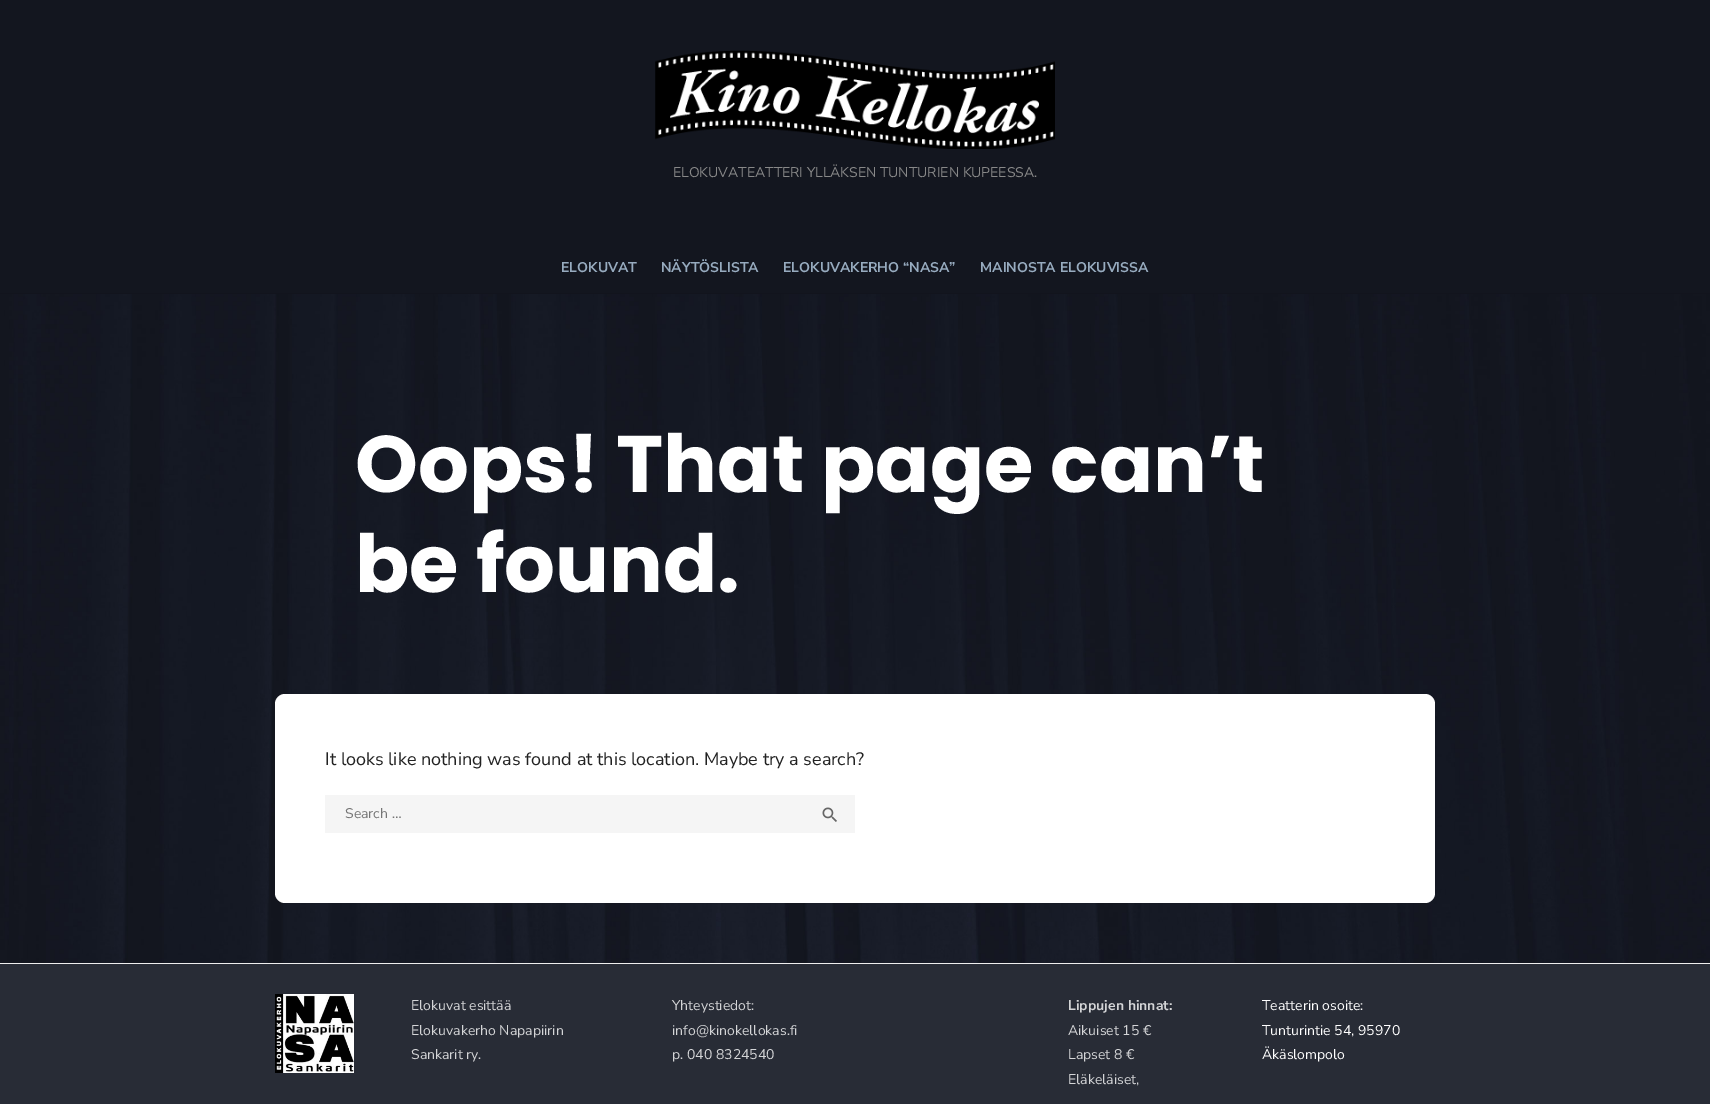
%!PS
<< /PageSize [1710 1104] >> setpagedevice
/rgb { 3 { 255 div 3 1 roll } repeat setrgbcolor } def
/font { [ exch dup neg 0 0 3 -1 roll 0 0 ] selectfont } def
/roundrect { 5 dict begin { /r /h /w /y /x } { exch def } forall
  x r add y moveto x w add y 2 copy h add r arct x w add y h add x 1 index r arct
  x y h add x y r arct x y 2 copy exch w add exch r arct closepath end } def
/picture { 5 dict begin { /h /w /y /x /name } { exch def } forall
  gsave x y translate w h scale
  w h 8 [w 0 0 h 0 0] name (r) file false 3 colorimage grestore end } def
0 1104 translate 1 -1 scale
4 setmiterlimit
255 255 255 rgb
0 0 1710 1104 rectfill
(img/1.rgb) 0 294 1710 669 picture
19 22 31 rgb
0 0 1710 293 rectfill
(img/2.rgb) 655 50 400 99 picture
18 20 29 rgb
0 293 1710 1 rectfill
255 255 255 rgb
275 694 1160 209 10 roundrect fill
245 245 245 rgb
325 795 530 38 rectfill
(img/3.rgb) 822 807 15 15 picture
238 238 238 rgb
0 963 1710 1 rectfill
40 44 54 rgb
0 964 1710 140 rectfill
(img/4.rgb) 275 994 79 79 picture
/NunitoSans-Regular 14 font
136 136 136 rgb
673 177 moveto (ELOKUVATEATTERI YLLÄKSEN TUNTURIEN KUPEESSA.) show
/NunitoSans-Bold 14 font
151 171 191 rgb
[
  [(ELOKUVAT) 561 272]
  [(NÄYTÖSLISTA) 661 272]
  [(ELOKUVAKERHO “NASA”) 783 272]
  [(MAINOSTA ELOKUVISSA) 980 272]
] { aload pop moveto show } forall
/Poppins-Bold 80 font
255 255 255 rgb
355 492 moveto (Oops! That page can’t) show
355 592 moveto (be found.) show
/NunitoSans-Regular 18 font
34 34 34 rgb
325 765 moveto (It looks like nothing was found at this location. Maybe try a search?) show
/NunitoSans-Regular 14 font
117 117 117 rgb
345 818 moveto (Search …) show
212 213 215 rgb
[
  [(Elokuvat esittää) 411 1010]
  [(Elokuvakerho Napapiirin) 411 1035]
  [(Sankarit ry.) 411 1059]
  [(Yhteystiedot:) 672 1010]
  [(info@kinokellokas.fi) 672 1035]
  [(p. 040 8324540) 672 1059]
] { aload pop moveto show } forall
/NunitoSans-Bold 14 font
1068 1010 moveto (Lippujen hinnat:) show
/NunitoSans-Regular 14 font
[
  [(Aikuiset 15 €) 1068 1035]
  [(Lapset 8 €) 1068 1059]
  [(Eläkeläiset,) 1068 1084]
] { aload pop moveto show } forall
255 255 255 rgb
[
  [(Teatterin osoite:) 1262 1010]
  [(Tunturintie 54, 95970) 1262 1035]
  [(Äkäslompolo) 1262 1059]
] { aload pop moveto show } forall
showpage
